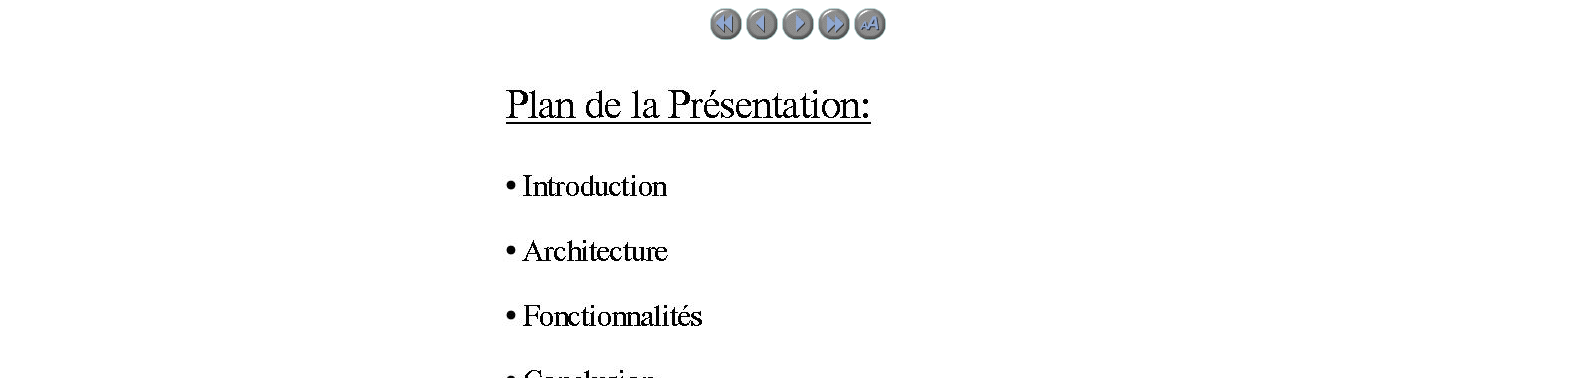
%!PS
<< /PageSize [1596 378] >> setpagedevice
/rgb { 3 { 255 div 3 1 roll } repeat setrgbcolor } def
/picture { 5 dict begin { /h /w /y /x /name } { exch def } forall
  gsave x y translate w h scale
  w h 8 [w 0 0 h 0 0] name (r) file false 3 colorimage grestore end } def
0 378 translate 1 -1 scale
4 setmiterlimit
255 255 255 rgb
0 0 1596 378 rectfill
(img/1.rgb) 710 8 32 32 picture
(img/2.rgb) 746 8 32 32 picture
(img/3.rgb) 782 8 32 32 picture
(img/4.rgb) 818 8 32 32 picture
(img/5.rgb) 854 8 32 32 picture
(img/6.rgb) 502 86 376 292 picture
showpage
